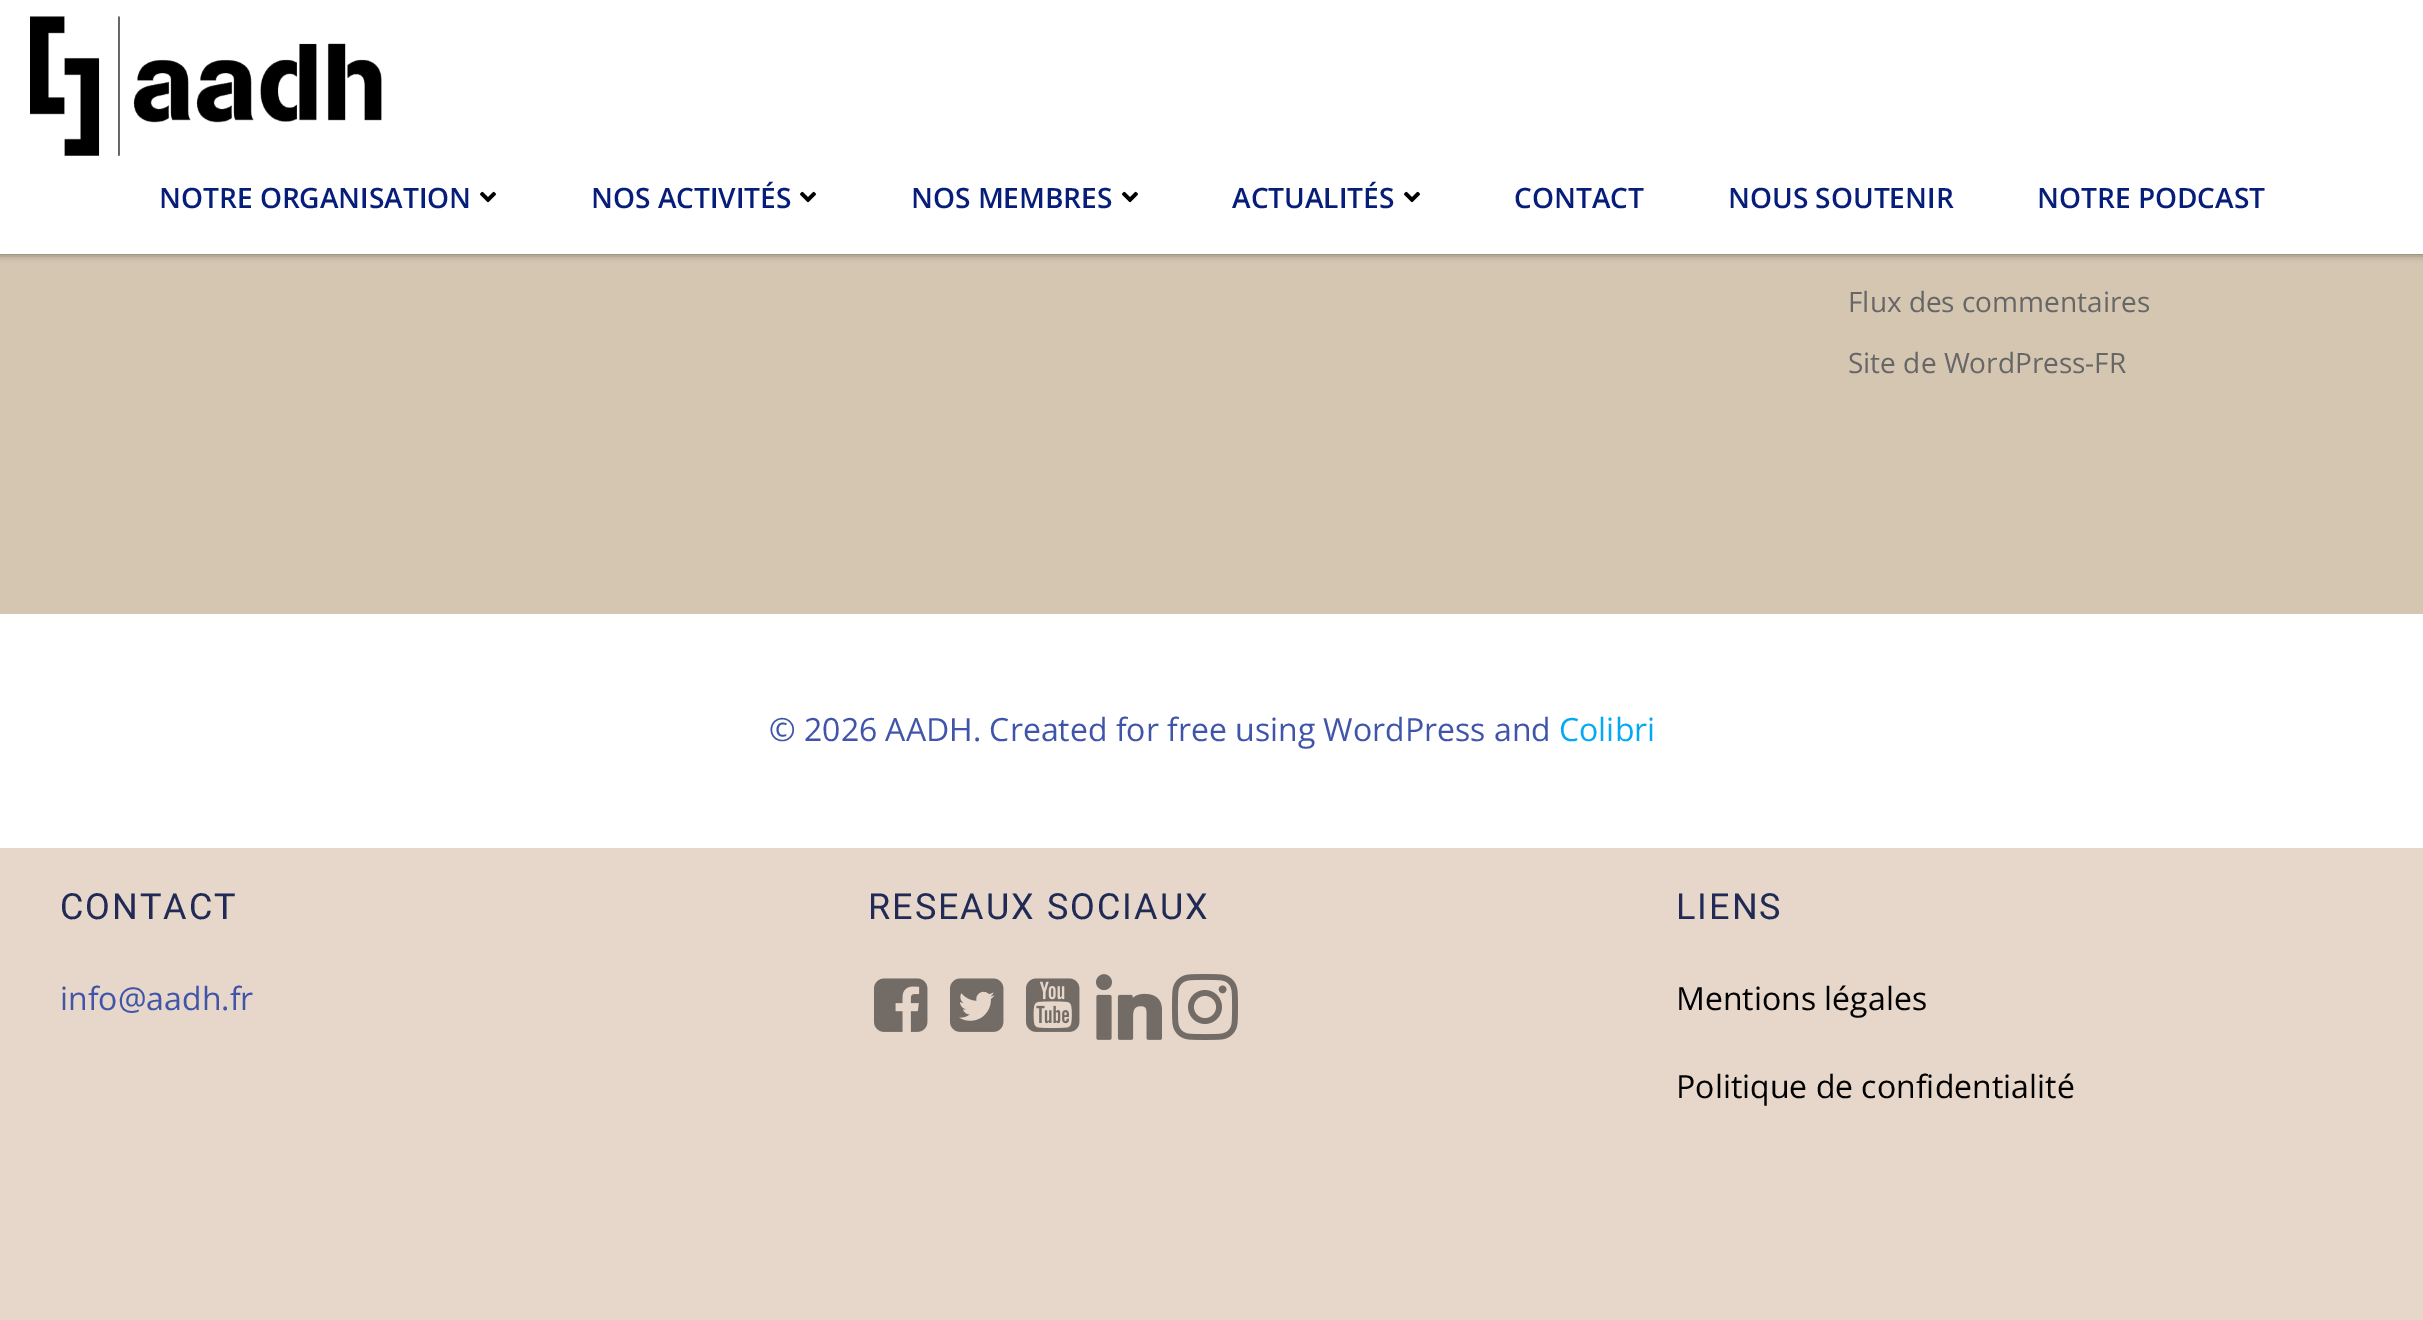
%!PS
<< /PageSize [2423 1320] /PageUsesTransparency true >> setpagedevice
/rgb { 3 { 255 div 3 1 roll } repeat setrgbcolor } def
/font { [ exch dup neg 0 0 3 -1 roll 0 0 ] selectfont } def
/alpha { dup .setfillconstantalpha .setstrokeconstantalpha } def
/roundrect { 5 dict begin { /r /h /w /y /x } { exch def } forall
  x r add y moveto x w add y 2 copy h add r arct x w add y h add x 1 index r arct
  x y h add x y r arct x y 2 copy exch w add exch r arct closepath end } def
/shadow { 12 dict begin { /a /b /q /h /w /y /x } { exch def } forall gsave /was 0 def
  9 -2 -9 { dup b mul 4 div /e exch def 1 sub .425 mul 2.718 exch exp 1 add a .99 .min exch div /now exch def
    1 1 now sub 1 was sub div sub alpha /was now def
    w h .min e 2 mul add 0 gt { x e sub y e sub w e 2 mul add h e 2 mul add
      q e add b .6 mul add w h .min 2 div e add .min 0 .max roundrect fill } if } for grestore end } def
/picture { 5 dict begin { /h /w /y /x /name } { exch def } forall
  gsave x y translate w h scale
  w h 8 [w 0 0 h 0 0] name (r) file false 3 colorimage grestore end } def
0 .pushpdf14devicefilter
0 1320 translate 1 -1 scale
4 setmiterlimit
255 255 255 rgb
0 0 2423 1320 rectfill
212 198 177 rgb
0 254 2423 360 rectfill
0 0 0 rgb
0 0 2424 254 0 4 0.5 shadow
255 255 255 rgb
0 0 2423 254 rectfill
(img/1.rgb) 30 16 352 140 picture
(img/2.rgb) 480 191 16 12 picture
(img/2.rgb) 800 191 16 12 picture
(img/2.rgb) 1122 191 16 12 picture
(img/2.rgb) 1404 191 16 12 picture
230 215 202 rgb
0 848 2423 472 rectfill
(img/3.rgb) 874 978 54 54 picture
(img/4.rgb) 950 978 54 54 picture
(img/5.rgb) 1026 978 54 54 picture
(img/6.rgb) 1096 974 66 66 picture
(img/7.rgb) 1172 974 66 66 picture
/OpenSans-SemiBold 28 font
7 29 122 rgb
[
  [(NOTRE ORGANISATION) 159 208]
  [(NOS ACTIVITÉS) 591 208]
  [(NOS MEMBRES) 911 208]
  [(ACTUALITÉS) 1232 208]
  [(CONTACT) 1514 208]
  [(NOUS SOUTENIR) 1728 208]
  [(NOTRE PODCAST) 2037 208]
] { aload pop moveto show } forall
/OpenSans-Regular 28 font
102 102 102 rgb
1848 312 moveto (Flux des commentaires) show
1848 373 moveto (Site de WordPress-FR) show
/OpenSans-Regular 32 font
64 85 169 rgb
769 741 moveto (© 2026 AADH. Created for free using WordPress and) show
3 169 244 rgb
1559 741 moveto (Colibri) show
/Roboto-Regular 36 font
32 42 84 rgb
60 919 moveto 2 0 (CONTACT) ashow
/OpenSans-Regular 32 font
64 85 169 rgb
60 1010 moveto (info@aadh.fr) show
/Roboto-Regular 36 font
32 42 84 rgb
868 919 moveto 2 0 (RESEAUX SOCIAUX) ashow
1676 919 moveto 2 0 (LIENS) ashow
/OpenSans-Regular 32 font
1 1 1 rgb
1676 1010 moveto (Mentions légales) show
1676 1098 moveto (Politique de confidentialité) show
.poppdf14devicefilter showpage
